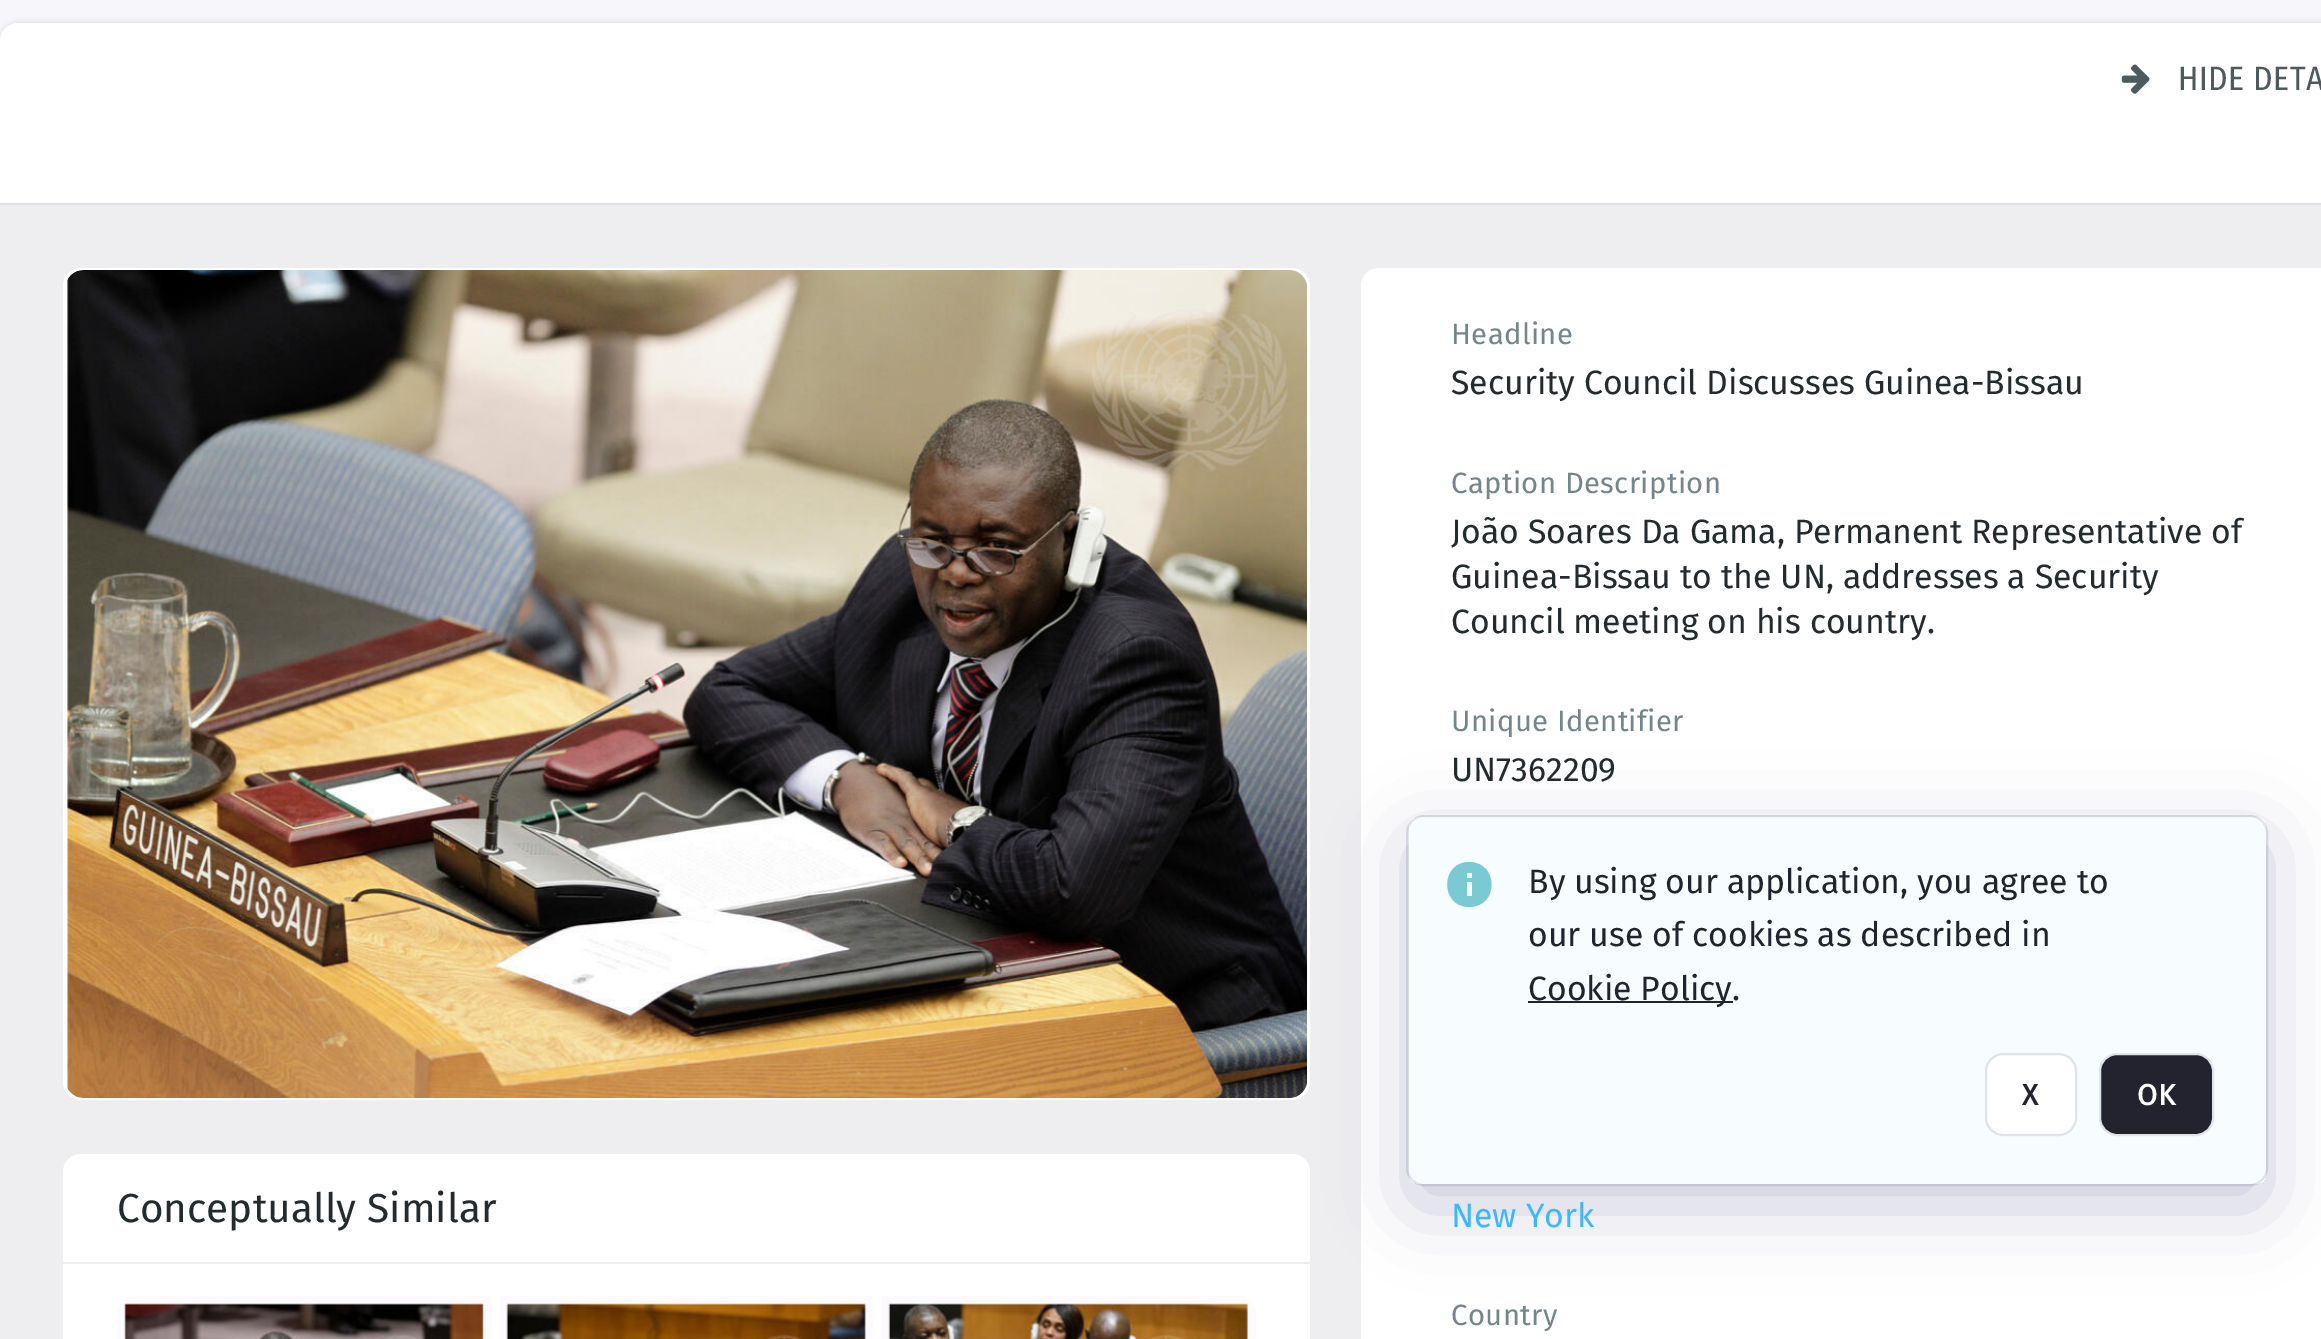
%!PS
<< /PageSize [2321 1339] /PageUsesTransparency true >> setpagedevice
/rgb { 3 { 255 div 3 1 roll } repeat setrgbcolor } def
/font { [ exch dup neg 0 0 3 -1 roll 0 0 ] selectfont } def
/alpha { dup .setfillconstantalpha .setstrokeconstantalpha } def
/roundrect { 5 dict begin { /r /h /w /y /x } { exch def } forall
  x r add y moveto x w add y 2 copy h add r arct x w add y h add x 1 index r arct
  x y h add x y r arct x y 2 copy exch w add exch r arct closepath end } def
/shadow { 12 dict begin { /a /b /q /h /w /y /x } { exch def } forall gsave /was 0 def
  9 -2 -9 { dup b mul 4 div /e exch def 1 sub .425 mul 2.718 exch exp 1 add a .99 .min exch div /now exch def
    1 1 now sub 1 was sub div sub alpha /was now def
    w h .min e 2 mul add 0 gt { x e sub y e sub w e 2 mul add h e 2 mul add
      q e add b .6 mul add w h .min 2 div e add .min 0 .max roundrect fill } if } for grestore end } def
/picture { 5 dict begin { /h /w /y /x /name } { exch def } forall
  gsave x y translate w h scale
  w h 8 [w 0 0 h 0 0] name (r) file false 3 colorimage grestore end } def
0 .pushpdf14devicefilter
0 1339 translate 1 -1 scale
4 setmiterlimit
247 247 251 rgb
0 0 2321 1339 rectfill
0 0 0 rgb
0 23 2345 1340 18 2 0.06 shadow
0 23 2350 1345 18 3.5 0.08 shadow
255 255 255 rgb
18 23 moveto 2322 23 lineto 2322 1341 lineto 0 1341 lineto 0 41 lineto 0 31 8 23 18 23 curveto closepath fill
(img/1.rgb) 2121 64 29 30 picture
223 224 228 rgb
0 203 2321 2 rectfill
238 238 241 rgb
0 205 2321 1134 rectfill
255 255 255 rgb
63 268 1247 832 18 roundrect fill
(img/2.rgb) 67 270 1240 828 picture
81 1154 moveto 1292 1154 lineto 1302 1154 1310 1162 1310 1172 curveto 1310 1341 lineto 63 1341 lineto 63 1172 lineto 63 1162 71 1154 81 1154 curveto closepath fill
252 250 252 rgb
135 1296 moveto 491 1296 lineto 491 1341 lineto 117 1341 lineto 117 1314 lineto 117 1304 125 1296 135 1296 curveto closepath fill
(img/3.rgb) 124 1303 360 36 picture
500 1296 373 43 rectfill
(img/4.rgb) 506 1303 360 36 picture
882 1296 moveto 1238 1296 lineto 1248 1296 1256 1304 1256 1314 curveto 1256 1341 lineto 882 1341 lineto closepath fill
(img/5.rgb) 888 1303 360 36 picture
238 238 241 rgb
63 1262 1247 2 rectfill
255 255 255 rgb
1379 268 moveto 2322 268 lineto 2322 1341 lineto 1361 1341 lineto 1361 286 lineto 1361 276 1369 268 1379 268 curveto closepath fill
247 253 254 rgb
1407 816 860 369 17 roundrect gsave fill grestore
226 226 233 rgb
2 setlinewidth
stroke
gsave
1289 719 moveto 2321 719 lineto 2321 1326 lineto 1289 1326 lineto closepath 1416 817 moveto 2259 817 lineto 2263 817 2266 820 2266 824 curveto 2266 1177 lineto 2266 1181 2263 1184 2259 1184 curveto 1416 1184 lineto 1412 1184 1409 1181 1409 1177 curveto 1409 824 lineto 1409 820 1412 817 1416 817 curveto closepath eoclip newpath
77 77 135 rgb
1409 839 857 367 7 39.5 0.3 shadow
grestore
122 202 211 rgb
1469 862 moveto 1440 862 1440 907 1469 907 curveto 1499 907 1499 862 1469 862 curveto closepath 1472 896 moveto 1467 896 lineto 1467 882 lineto 1472 882 lineto closepath 1472 878 moveto 1467 878 lineto 1467 873 lineto 1472 873 lineto closepath fill
35 35 47 rgb
1528 1001 205 2 rectfill
255 255 255 rgb
1986 1054 90 81 17 roundrect gsave fill grestore
226 226 233 rgb
stroke
35 35 47 rgb
2100 1054 113 81 17 roundrect gsave fill grestore
226 226 233 rgb
stroke
/FiraSansCondensed-Regular 33.75 font
79 90 95 rgb
2178 90 moveto 0.5 0 (HIDE DETA) ashow
/FiraSans-Regular 40.5 font
36 43 46 rgb
117 1222 moveto (Conceptually Similar) show
/FiraSans-Regular 29.25 font
116 133 140 rgb
1451 344 moveto 0.4 0 (Headline) ashow
/FiraSans-Regular 33.75 font
36 43 46 rgb
1451 394 moveto (Security Council Discusses Guinea-Bissau) show
/FiraSans-Regular 29.25 font
116 133 140 rgb
1451 493 moveto 0.4 0 (Caption Description) ashow
/FiraSans-Regular 33.75 font
36 43 46 rgb
[
  [(João Soares Da Gama, Permanent Representative of) 1451 543]
  [(Guinea-Bissau to the UN, addresses a Security) 1451 588]
  [(Council meeting on his country.) 1451 633]
] { aload pop moveto show } forall
/FiraSans-Regular 29.25 font
116 133 140 rgb
1451 731 moveto 0.4 0 (Unique Identifier) ashow
/FiraSans-Regular 33.75 font
36 43 46 rgb
1451 781 moveto (UN7362209) show
61 183 255 rgb
1451 1227 moveto (New York) show
/FiraSans-Regular 29.25 font
116 133 140 rgb
1451 1325 moveto 0.4 0 (Country) ashow
/FiraSans-Regular 33.75 font
35 35 47 rgb
[
  [(By using our application, you agree to) 1528 893]
  [(our use of cookies as described in) 1528 946]
  [(Cookie Policy) 1528 1000]
  [(.) 1732 1000]
] { aload pop moveto show } forall
/FiraSans-Bold 29.25 font
2022 1105 moveto 1 0 (X) ashow
255 255 255 rgb
2137 1105 moveto 1 0 (OK) ashow
.poppdf14devicefilter showpage
